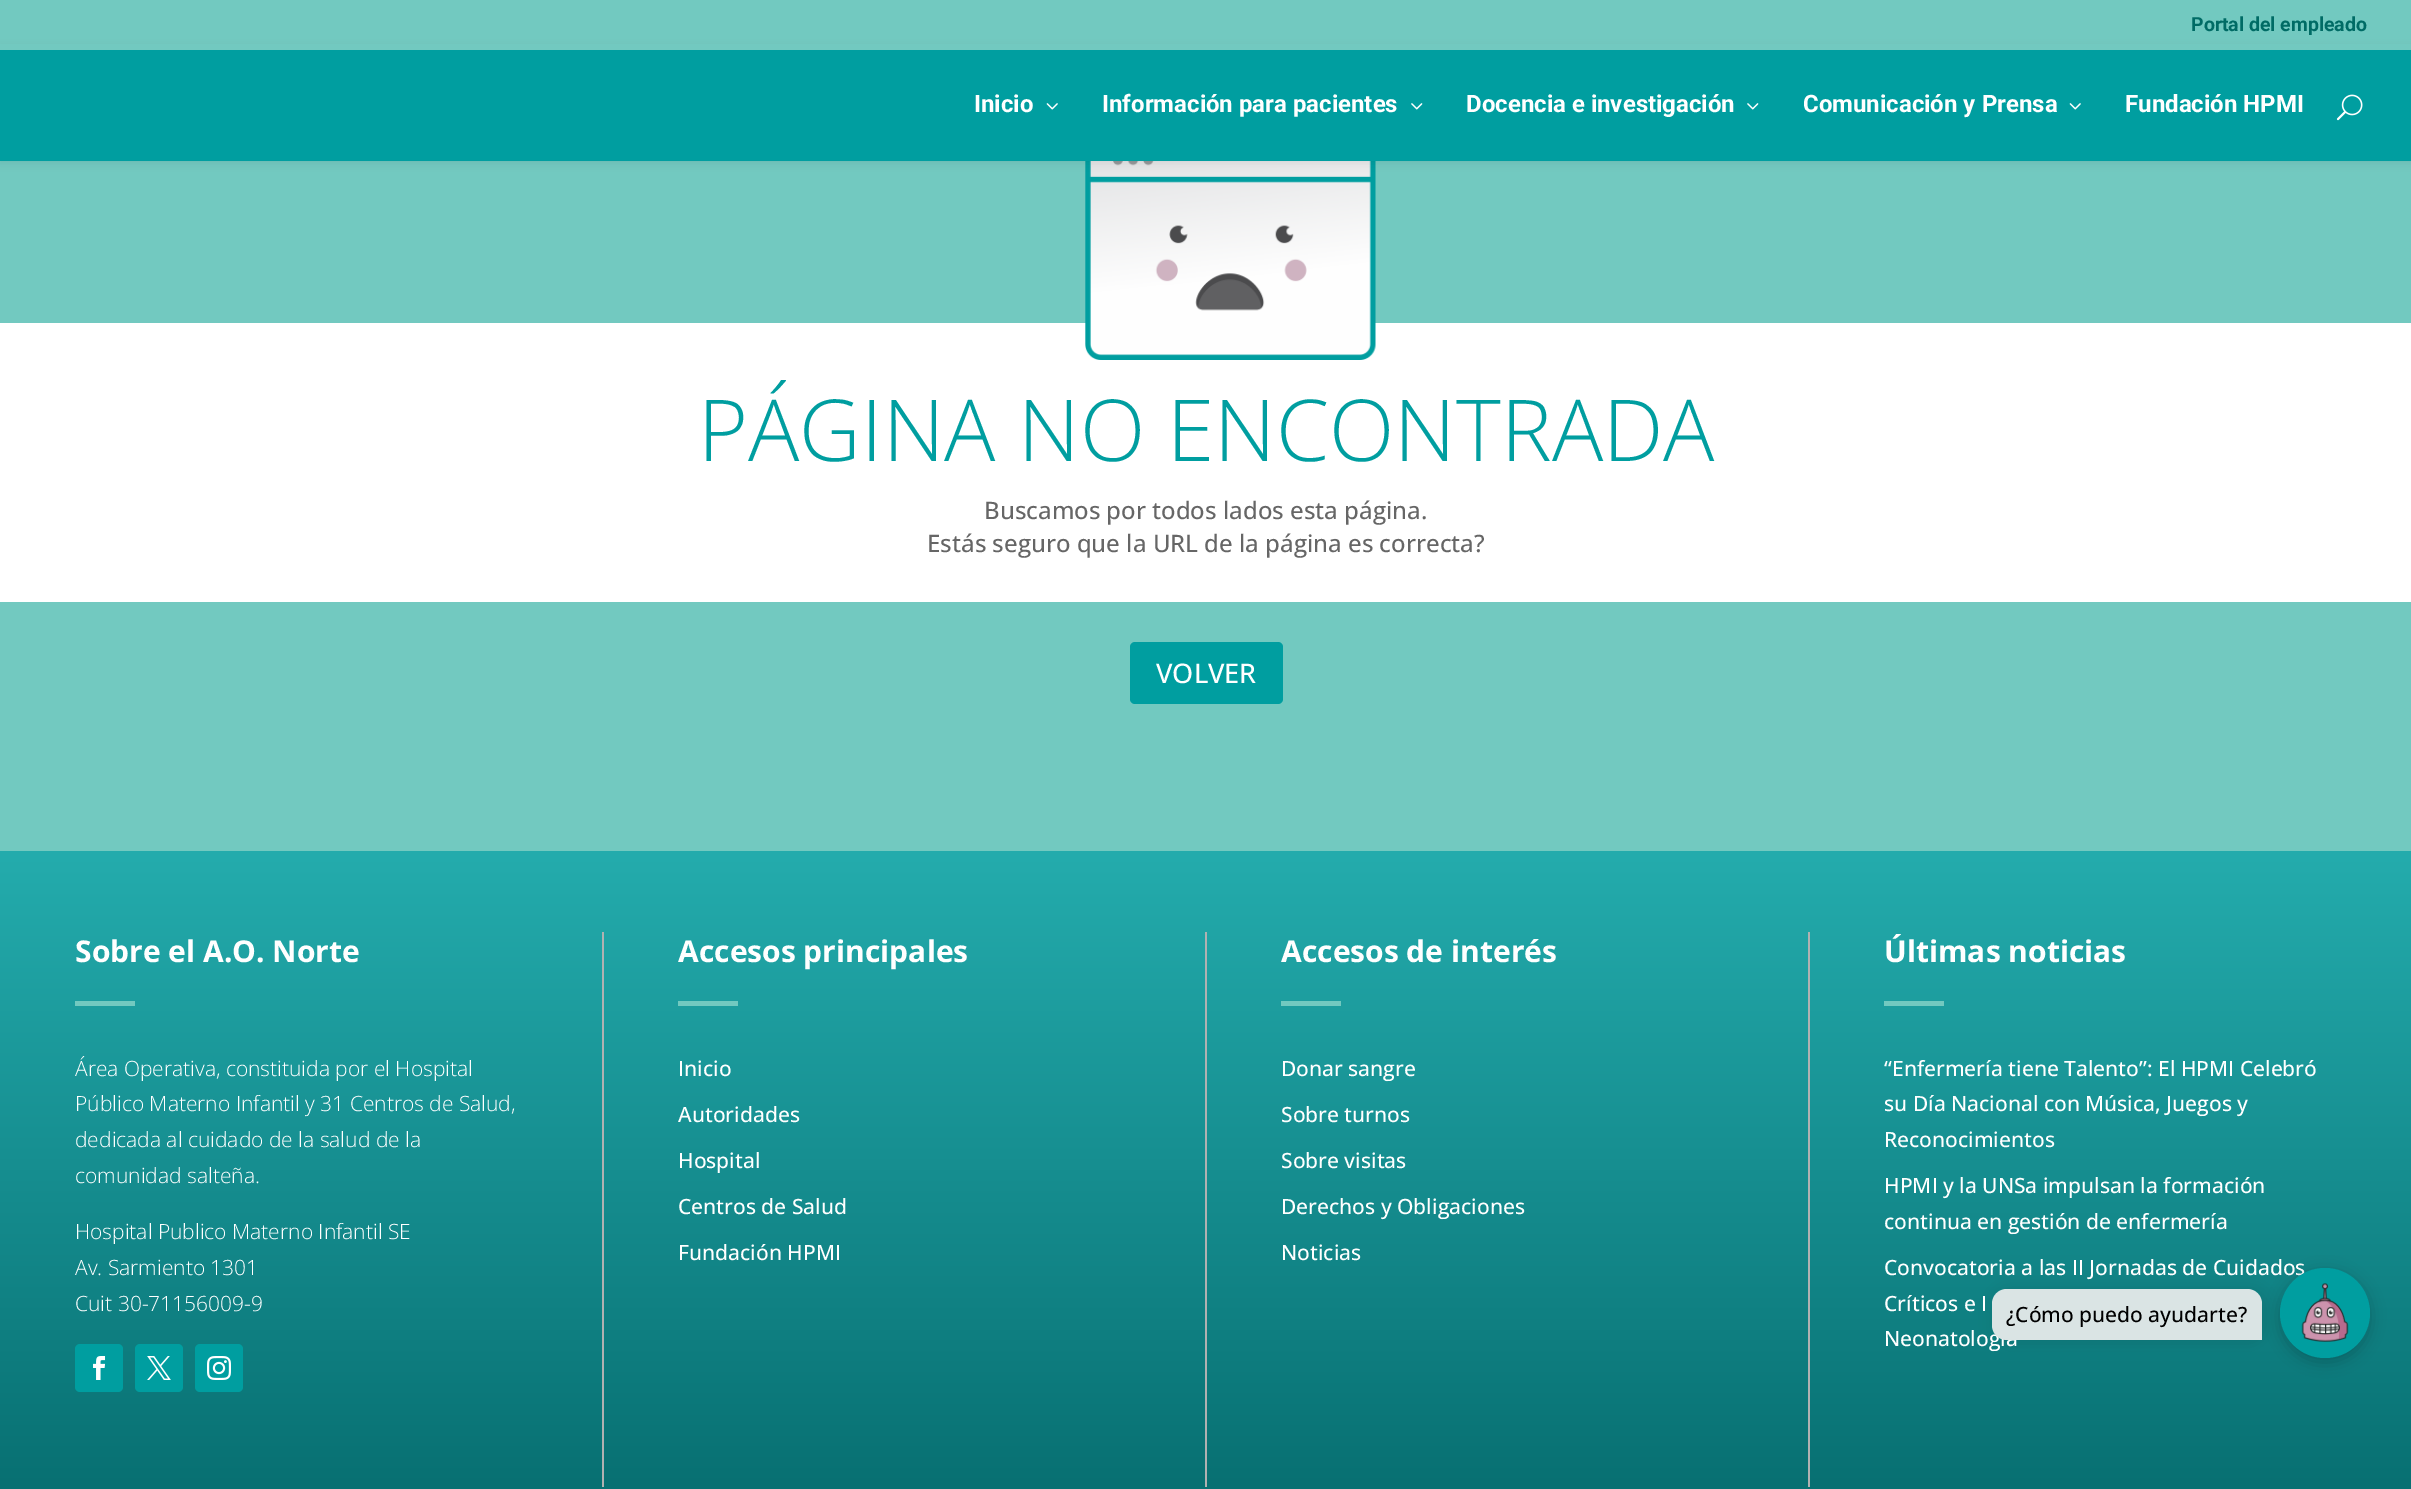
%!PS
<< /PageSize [2411 1489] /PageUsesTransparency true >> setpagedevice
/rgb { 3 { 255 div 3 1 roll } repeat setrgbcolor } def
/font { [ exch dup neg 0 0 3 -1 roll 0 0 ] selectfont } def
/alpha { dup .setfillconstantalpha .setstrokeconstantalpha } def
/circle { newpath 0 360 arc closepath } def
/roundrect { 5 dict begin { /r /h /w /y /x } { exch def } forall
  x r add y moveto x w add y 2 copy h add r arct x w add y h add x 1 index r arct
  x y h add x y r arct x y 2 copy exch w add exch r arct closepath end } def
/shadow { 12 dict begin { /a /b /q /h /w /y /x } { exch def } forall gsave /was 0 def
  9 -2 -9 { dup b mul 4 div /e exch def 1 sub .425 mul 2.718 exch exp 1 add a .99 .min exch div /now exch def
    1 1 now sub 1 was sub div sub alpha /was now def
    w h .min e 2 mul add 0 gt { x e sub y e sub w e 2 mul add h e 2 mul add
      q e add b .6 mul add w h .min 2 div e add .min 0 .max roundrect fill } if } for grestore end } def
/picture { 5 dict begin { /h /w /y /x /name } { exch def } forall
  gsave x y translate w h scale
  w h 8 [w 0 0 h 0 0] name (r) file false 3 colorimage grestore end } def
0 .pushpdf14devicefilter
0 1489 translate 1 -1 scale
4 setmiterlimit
114 201 192 rgb
0 0 2411 1489 rectfill
255 255 255 rgb
0 323 2411 279 rectfill
(img/4.rgb) 1085 161 291 199 picture
0 0 0 rgb
0 50 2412 111 0 5 0.1 shadow
114 201 192 rgb
0 44 2411 6 rectfill
0 158 160 rgb
0 50 2411 111 rectfill
(img/1.rgb) 1046 103 12 7 picture
(img/2.rgb) 1411 103 12 7 picture
(img/2.rgb) 1747 103 12 7 picture
(img/1.rgb) 2069 103 12 7 picture
(img/3.rgb) 2336 94 27 27 picture
1130 642 153 62 5 roundrect fill
gsave 0 851 moveto 2411 851 lineto 2411 1489 lineto 0 1489 lineto closepath clip newpath
<< /ShadingType 2 /ColorSpace /DeviceRGB /Coords [1206 850 1206 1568] /Extend [true true] /Function << /FunctionType 2 /Domain [0 1] /C0 [0.141 0.675 0.678] /C1 [0.02 0.412 0.42] /N 1 >> >> shfill grestore
177 177 177 rgb
602 932 2 555 rectfill
114 201 192 rgb
75 1001 60 5 rectfill
0 158 160 rgb
75 1344 48 48 5 roundrect fill
(img/5.rgb) 93 1356 13 24 picture
135 1344 48 48 5 roundrect fill
(img/6.rgb) 147 1356 24 24 picture
195 1344 48 48 5 roundrect fill
(img/7.rgb) 207 1356 24 24 picture
[
  [1205 932 2 555 177 177 177]
  [678 1001 60 5 114 201 192]
  [1808 932 2 555 177 177 177]
  [1281 1001 60 5 114 201 192]
  [1884 1001 60 5 114 201 192]
] { aload pop rgb rectfill } forall
0 0 0 rgb
1995 1292 270 51 15 7.5 0.1 shadow
/Roboto-Bold 19.5 font
0 107 101 rgb
2191 31 moveto (Portal del empleado) show
/Roboto-Bold 24 font
255 255 255 rgb
[
  [(Inicio) 974 112]
  [(Información para pacientes) 1102 112]
  [(Docencia e investigación) 1466 112]
  [(Comunicación y Prensa) 1803 112]
  [(Fundación HPMI) 2125 112]
] { aload pop moveto show } forall
/OpenSans-Light 85.5 font
0 158 160 rgb
698 461 moveto (PÁGINA NO ENCONTRADA) show
/OpenSans-Medium 24 font
102 102 102 rgb
984 519 moveto (Buscamos por todos lados esta página.) show
927 552 moveto (Estás seguro que la URL de la página es correcta?) show
/OpenSans-Medium 27 font
255 255 255 rgb
1156 683 moveto (VOLVER) show
/OpenSans-Bold 30 font
75 962 moveto (Sobre el A.O. Norte) show
/OpenSans-Light 21 font
[
  [(Área Operativa, constituida por el Hospital) 75 1076]
  [(Público Materno Infantil y 31 Centros de Salud,) 75 1111]
  [(dedicada al cuidado de la salud de la) 75 1147]
  [(comunidad salteña.) 75 1183]
  [(Hospital Publico Materno Infantil SE) 75 1239]
  [(Av. Sarmiento 1301) 75 1275]
  [(Cuit 30-71156009-9) 75 1311]
] { aload pop moveto show } forall
/OpenSans-Bold 30 font
678 962 moveto (Accesos principales) show
/OpenSans-Medium 21 font
[
  [(Inicio) 678 1076]
  [(Autoridades) 678 1122]
  [(Hospital) 678 1168]
  [(Centros de Salud) 678 1214]
  [(Fundación HPMI) 678 1260]
] { aload pop moveto show } forall
/OpenSans-Bold 30 font
1281 962 moveto (Accesos de interés) show
/OpenSans-Medium 21 font
[
  [(Donar sangre) 1281 1076]
  [(Sobre turnos) 1281 1122]
  [(Sobre visitas) 1281 1168]
  [(Derechos y Obligaciones) 1281 1214]
  [(Noticias) 1281 1260]
] { aload pop moveto show } forall
/OpenSans-Bold 30 font
1884 962 moveto (Últimas noticias) show
/OpenSans-Medium 21 font
[
  [(“Enfermería tiene Talento”: El HPMI Celebró) 1884 1076]
  [(su Día Nacional con Música, Juegos y) 1884 1111]
  [(Reconocimientos) 1884 1147]
  [(HPMI y la UNSa impulsan la formación) 1884 1193]
  [(continua en gestión de enfermería) 1884 1229]
  [(Convocatoria a las II Jornadas de Cuidados) 1884 1275]
  [(Críticos e I) 1884 1311]
  [(Neonatología) 1884 1346]
] { aload pop moveto show } forall
218 228 228 rgb
2007 1289 moveto 2247 1289 lineto 2255.5 1289 2262 1295.5 2262 1304 curveto 2262 1340 lineto 2007 1340 lineto 1998.5 1340 1992 1333.5 1992 1325 curveto 1992 1304 lineto 1992 1295.5 1998.5 1289 2007 1289 curveto closepath fill
0 0 0 rgb
2006 1322 moveto (¿Cómo puedo ayudarte?) show
2280 1272 90 90 45 7.5 0.2 shadow
0 158 160 rgb
2325 1313 45 circle fill
(img/8.rgb) 2301 1283 48 59 picture
.poppdf14devicefilter showpage
